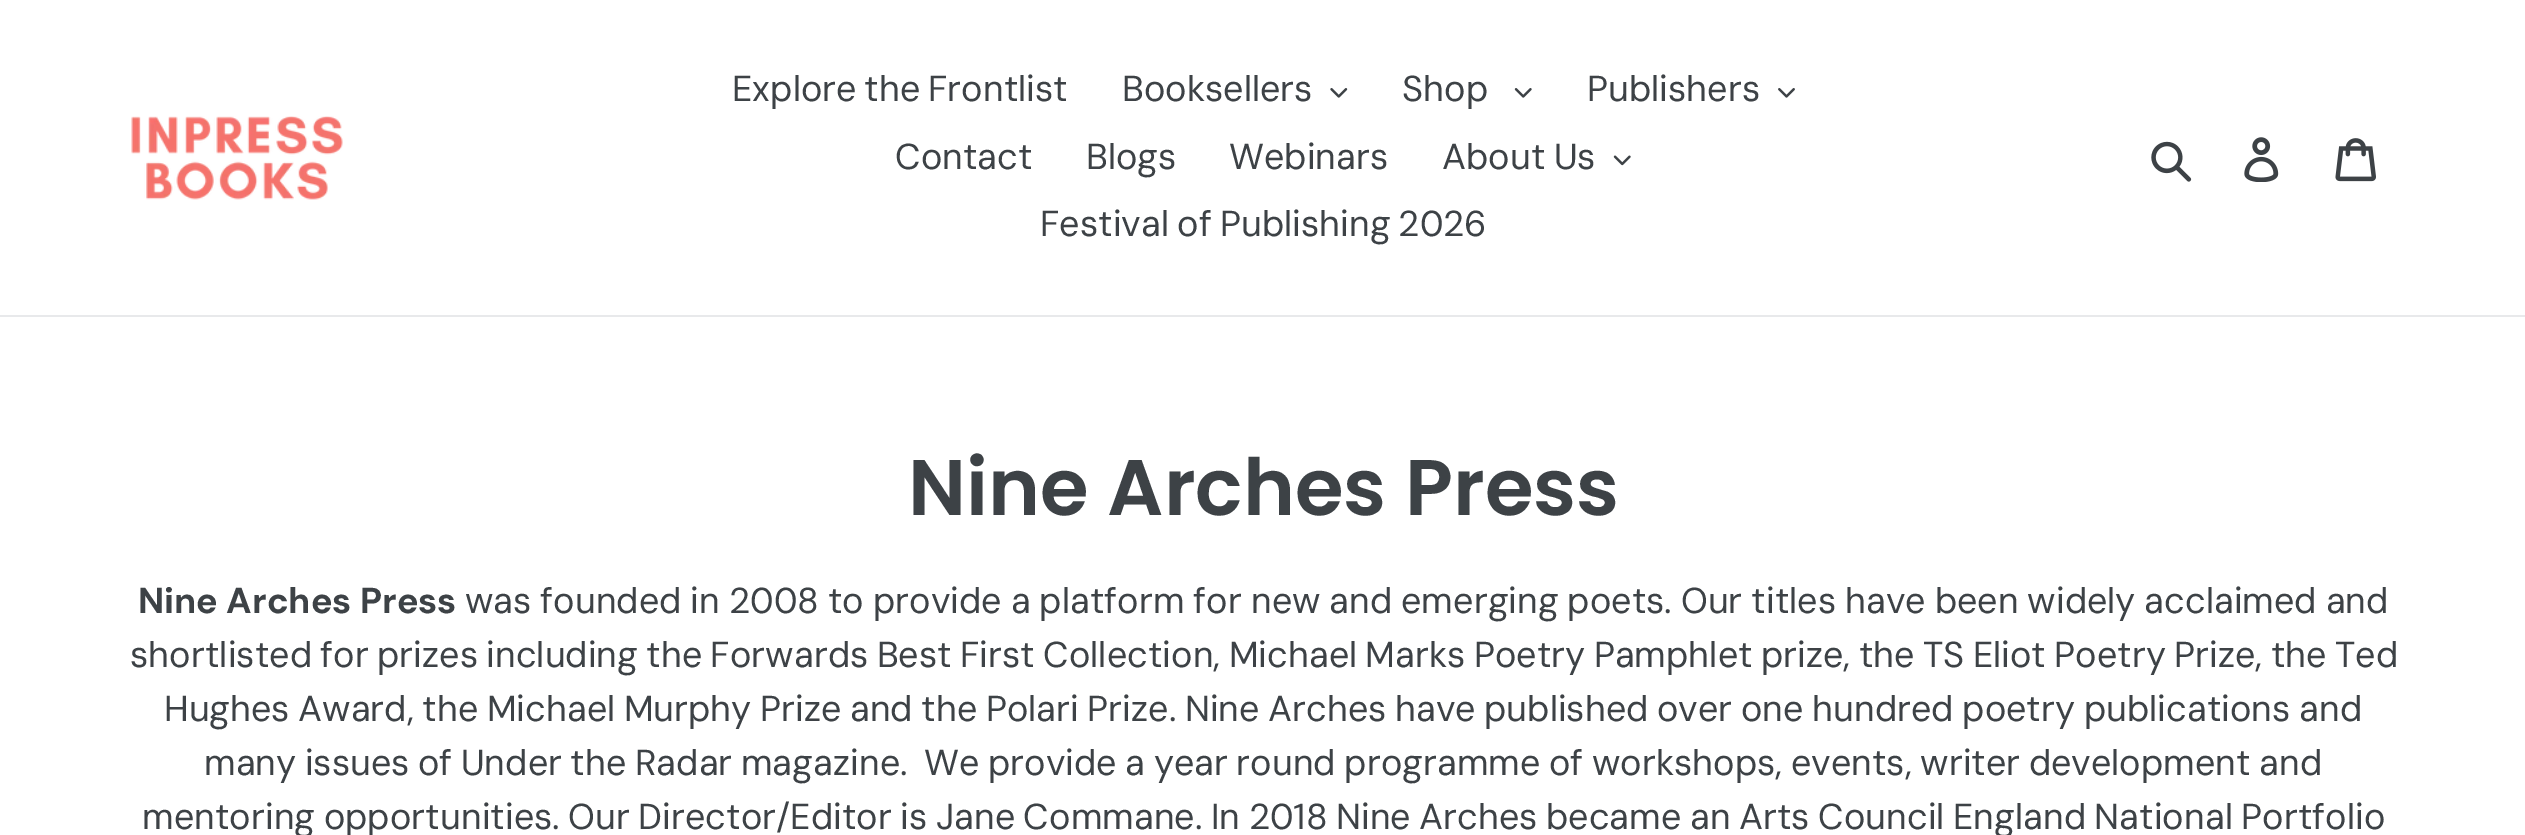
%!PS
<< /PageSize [2525 835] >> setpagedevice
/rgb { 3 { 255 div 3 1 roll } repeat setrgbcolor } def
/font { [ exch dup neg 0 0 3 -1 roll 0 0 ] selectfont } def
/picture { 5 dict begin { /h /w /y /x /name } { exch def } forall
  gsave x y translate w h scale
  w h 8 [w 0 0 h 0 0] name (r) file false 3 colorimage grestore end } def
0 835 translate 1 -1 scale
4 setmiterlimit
255 255 255 rgb
0 0 2525 835 rectfill
232 233 235 rgb
0 315 2525 2 rectfill
(img/1.rgb) 131 116 212 84 picture
(img/2.rgb) 1330 88 18 10 picture
(img/3.rgb) 1514 88 18 10 picture
(img/4.rgb) 1778 88 17 10 picture
(img/5.rgb) 1613 155 18 11 picture
(img/6.rgb) 2151 141 41 41 picture
(img/7.rgb) 2244 137 35 45 picture
(img/8.rgb) 2335 138 41 44 picture
/DMSans-Regular 36 font
61 66 70 rgb
732 101 moveto -2 0 32 (Explore the Frontlist) widthshow
[
  [(Booksellers) 1122 101]
  [(Shop) 1402 101]
  [(Publishers) 1587 101]
  [(Contact) 895 169]
  [(Blogs) 1086 169]
  [(Webinars) 1229 169]
] { aload pop moveto show } forall
1442 169 moveto -1 0 32 (About Us) widthshow
1040 236 moveto -1.5 0 32 (Festival of Publishing 2026) widthshow
/Poppins-SemiBold 78.75 font
908 515 moveto (Nine Arches Press) show
/DMSans-Bold 36 font
138 613 moveto (Nine Arches Press) show
/DMSans-Regular 36 font
465 613 moveto -0.8 0 32 (was founded in 2008 to provide a platform for new and emerging poets. Our titles have been widely acclaimed and) widthshow
130 667 moveto -1.4 0 32 (shortlisted for prizes including the Forwards Best First Collection, Michael Marks Poetry Pamphlet prize, the TS Eliot Poetry Prize, the Ted) widthshow
164 721 moveto -1.2 0 32 (Hughes Award, the Michael Murphy Prize and the Polari Prize. Nine Arches have published over one hundred poetry publications and) widthshow
204 775 moveto -1.25 0 32 (many issues of Under the Radar magazine.  We provide a year round programme of workshops, events, writer development and) widthshow
142 829 moveto -1.25 0 32 (mentoring opportunities. Our Director/Editor is Jane Commane. In 2018 Nine Arches became an Arts Council England National Portfolio) widthshow
showpage
